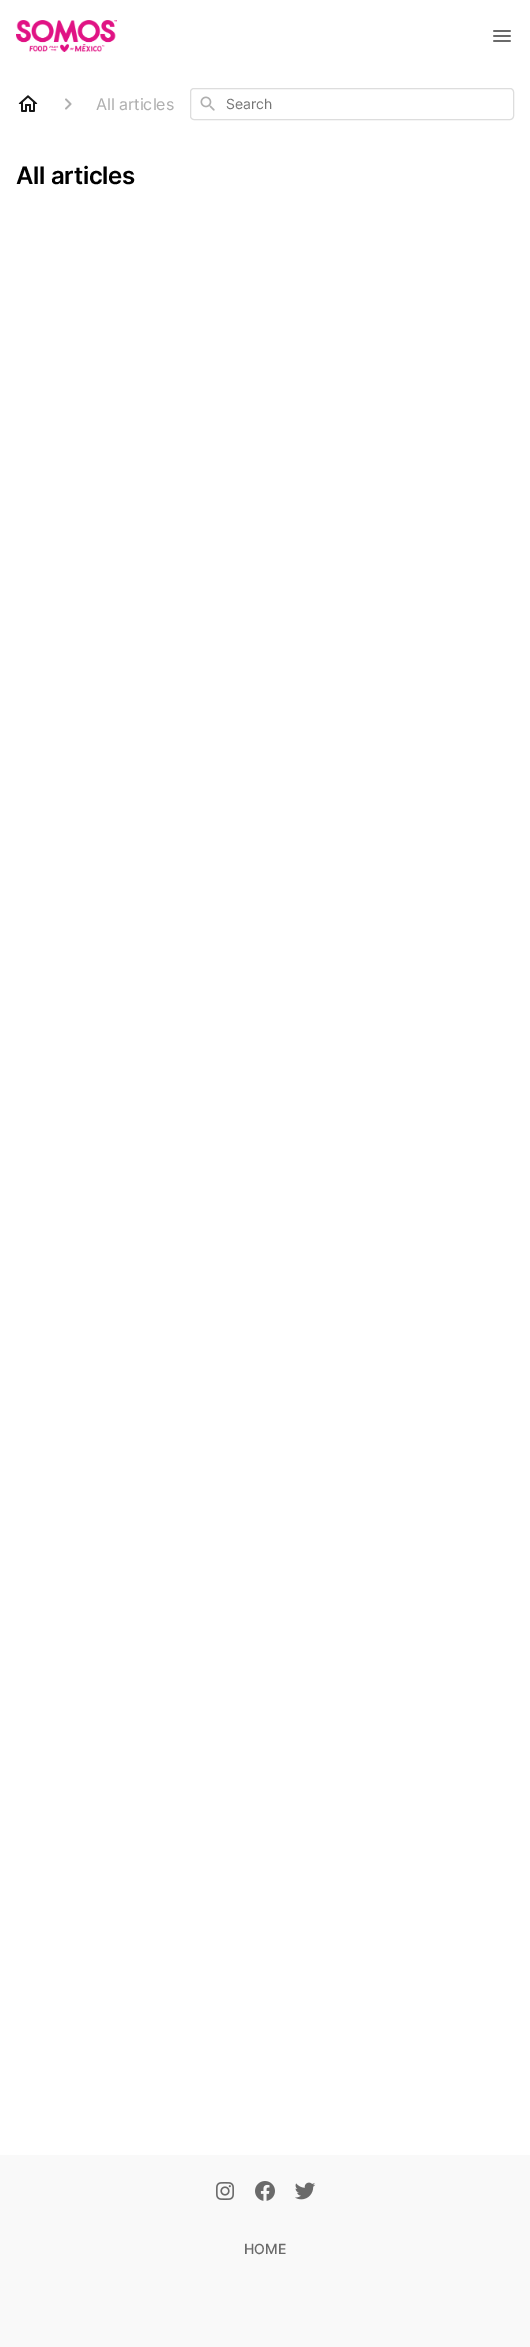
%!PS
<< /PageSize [530 2347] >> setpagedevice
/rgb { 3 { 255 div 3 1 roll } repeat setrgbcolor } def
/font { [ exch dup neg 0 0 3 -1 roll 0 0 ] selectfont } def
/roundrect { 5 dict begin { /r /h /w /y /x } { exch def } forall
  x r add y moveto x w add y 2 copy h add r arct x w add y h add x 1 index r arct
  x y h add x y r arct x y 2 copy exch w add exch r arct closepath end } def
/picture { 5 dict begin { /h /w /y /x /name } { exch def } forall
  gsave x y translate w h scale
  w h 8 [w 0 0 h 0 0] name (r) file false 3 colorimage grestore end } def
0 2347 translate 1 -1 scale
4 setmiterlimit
255 255 255 rgb
0 0 530 2347 rectfill
(img/1.rgb) 16 20 101 32 picture
(img/2.rgb) 493 30 18 12 picture
(img/3.rgb) 18 95 20 17 picture
(img/4.rgb) 65 98 7 12 picture
221 221 221 rgb
190.5 88.5 323 31 3.5 roundrect stroke
(img/5.rgb) 200 96 15 15 picture
249 249 249 rgb
0 2155 530 192 rectfill
(img/6.rgb) 216 2182 18 18 picture
(img/7.rgb) 255 2181 20 20 picture
(img/8.rgb) 295 2182 21 18 picture
/Inter-Regular 16 font
175 175 175 rgb
96 110 moveto (All articles) show
/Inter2-Regular 14 font
117 117 117 rgb
226 109 moveto (Search) show
/Inter-SemiBold 24 font
0 0 0 rgb
16 184 moveto -0.25 0 (All articles) ashow
/Inter-Medium 14 font
106 106 106 rgb
244 2254 moveto (HOME) show
showpage
